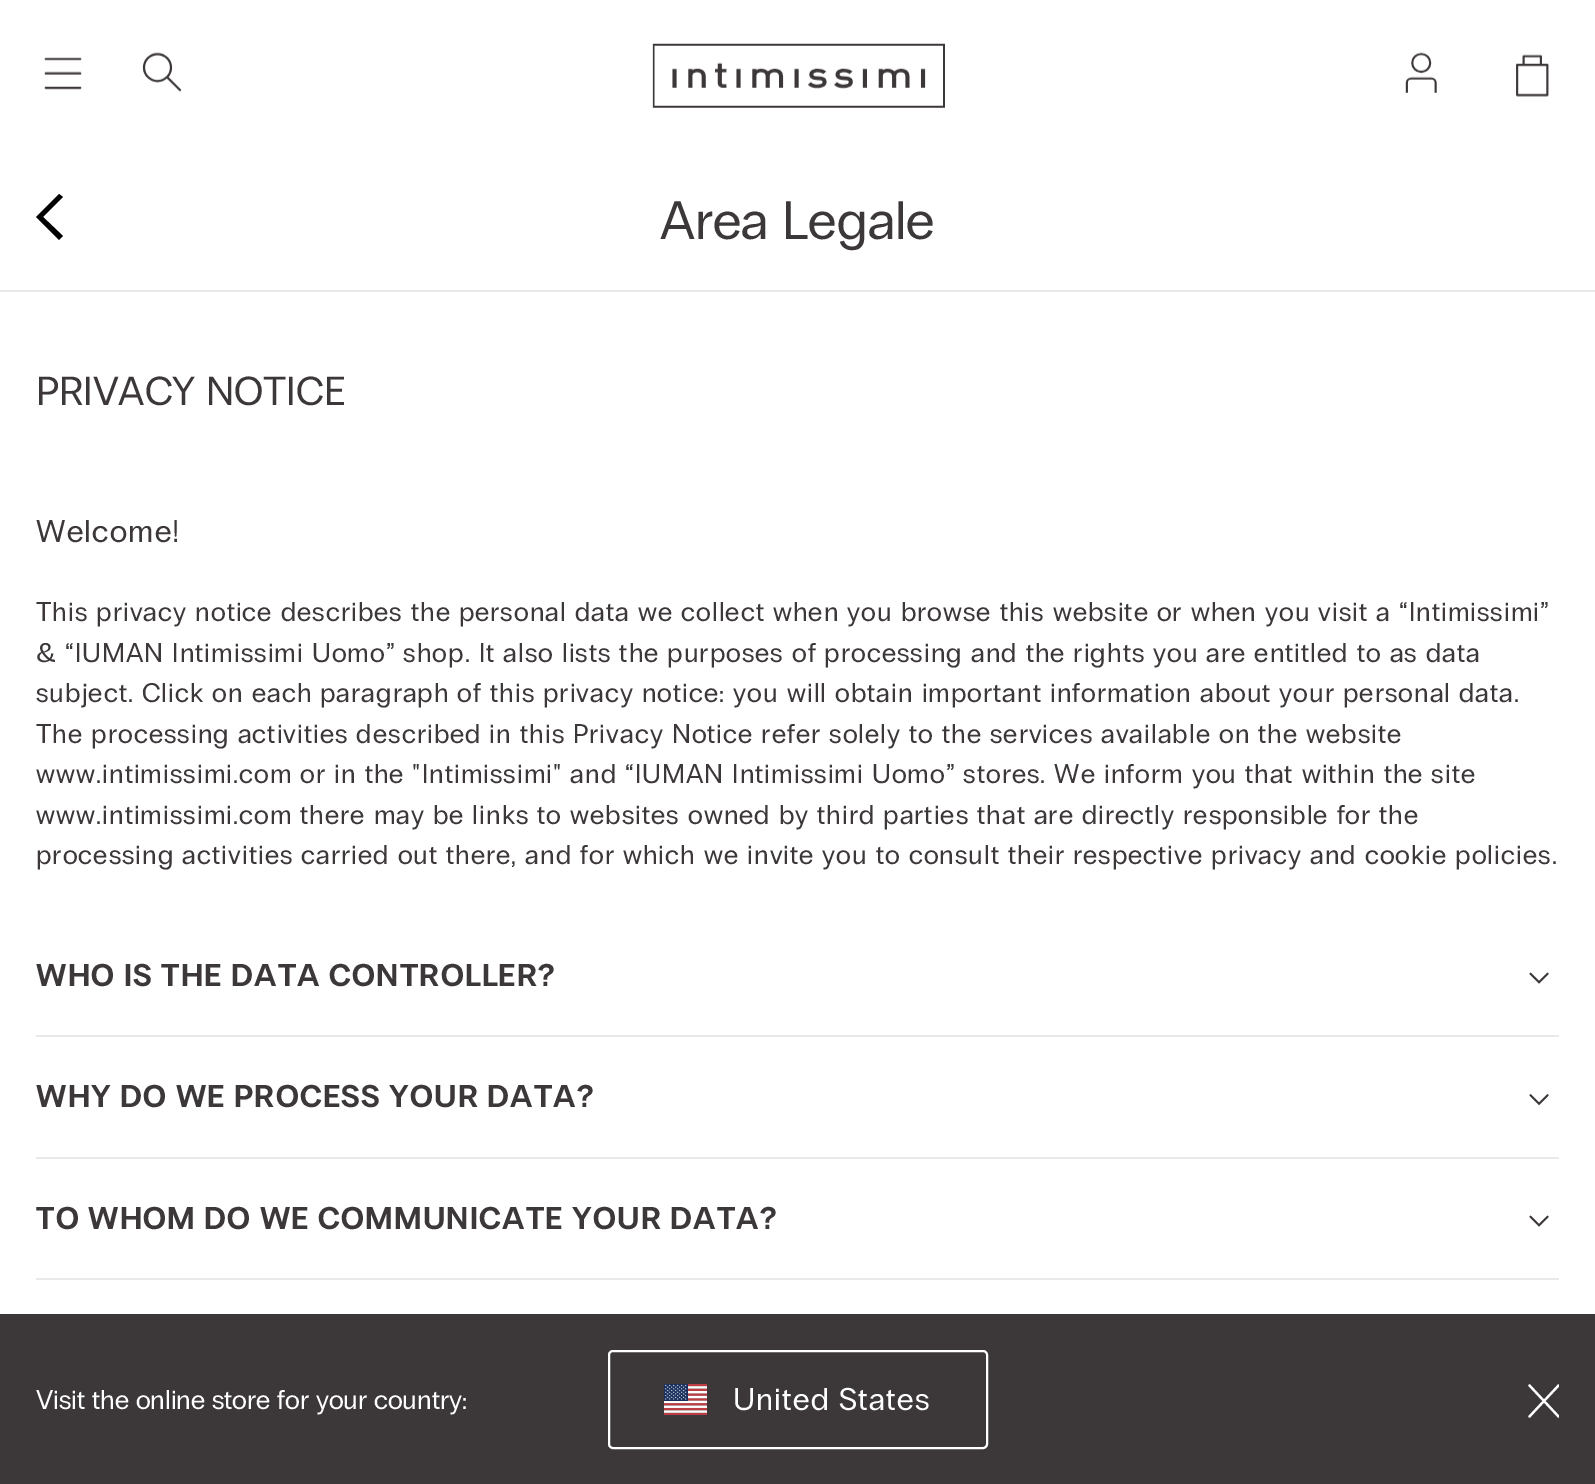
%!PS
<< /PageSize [1595 1484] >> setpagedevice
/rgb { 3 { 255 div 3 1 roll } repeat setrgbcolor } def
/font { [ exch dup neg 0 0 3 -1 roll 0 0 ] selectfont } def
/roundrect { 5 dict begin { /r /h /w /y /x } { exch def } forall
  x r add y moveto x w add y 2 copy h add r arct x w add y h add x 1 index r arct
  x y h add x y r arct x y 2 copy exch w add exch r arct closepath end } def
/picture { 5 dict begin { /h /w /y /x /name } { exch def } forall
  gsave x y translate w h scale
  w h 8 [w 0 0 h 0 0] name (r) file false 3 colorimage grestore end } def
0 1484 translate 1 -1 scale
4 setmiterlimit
255 255 255 rgb
0 0 1595 1484 rectfill
(img/1.rgb) 44 57 38 33 picture
(img/2.rgb) 142 52 40 40 picture
(img/3.rgb) 652 43 293 65 picture
(img/4.rgb) 1405 52 32 41 picture
(img/5.rgb) 1516 54 33 43 picture
232 232 232 rgb
0 290 1595 2 rectfill
1 1 1 rgb
59 240 moveto 36 217 lineto 59 194 lineto 63 197 lineto 43 217 lineto 63 236 lineto closepath eofill
233 233 233 rgb
36 1035 1523 2 rectfill
(img/6.rgb) 1529 972 20 12 picture
36 1157 1523 2 rectfill
(img/7.rgb) 1529 1094 20 12 picture
36 1278 1523 2 rectfill
(img/6.rgb) 1529 1215 20 12 picture
60 55 56 rgb
0 1314 1595 170 rectfill
255 255 255 rgb
2 setlinewidth
609 1351 378 97 4 roundrect stroke
(img/8.rgb) 664 1384 43 31 picture
gsave
1528 1384 31 34 rectclip
2.2 setlinewidth
1 setlinecap
1558.5 1385.5 moveto 1529.5 1416.5 lineto 1529.5 1385.5 moveto 1558.5 1416.5 lineto stroke
grestore
/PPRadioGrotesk-Regular 54 font
60 55 56 rgb
660 239 moveto (Area Legale) show
/PPRadioGrotesk-Regular 40.5 font
36 405 moveto (PRIVACY NOTICE) show
/PPRadioGrotesk-Regular 31.5 font
36 542 moveto 1.25 0 (Welcome!) ashow
/PPRadioGrotesk-Regular 27 font
36 621 moveto 1.08 0 (This privacy notice describes the personal data we collect when you browse this website or when you visit a “Intimissimi”) ashow
36 662 moveto 1.08 0 (& “IUMAN Intimissimi Uomo” shop. It also lists the purposes of processing and the rights you are entitled to as data) ashow
36 702 moveto 1.08 0 (subject. Click on each paragraph of this privacy notice: you will obtain important information about your personal data.) ashow
36 743 moveto 1.08 0 (The processing activities described in this Privacy Notice refer solely to the services available on the website) ashow
36 783 moveto 1.08 0 (www.intimissimi.com or in the "Intimissimi" and “IUMAN Intimissimi Uomo” stores. We inform you that within the site) ashow
36 824 moveto 1.08 0 (www.intimissimi.com there may be links to websites owned by third parties that are directly responsible for the) ashow
36 864 moveto 1.08 0 (processing activities carried out there, and for which we invite you to consult their respective privacy and cookie policies.) ashow
/PPRadioGrotesk-Bold 31.5 font
36 986 moveto 1.25 0 (WHO IS THE DATA CONTROLLER?) ashow
36 1107 moveto 1.25 0 (WHY DO WE PROCESS YOUR DATA?) ashow
36 1229 moveto 1.25 0 (TO WHOM DO WE COMMUNICATE YOUR DATA?) ashow
/PPRadioGrotesk-Regular 27 font
255 255 255 rgb
36 1409 moveto (Visit the online store for your country:) show
/PPRadioGrotesk-Regular 31.5 font
733 1410 moveto 1.25 0 (United States) ashow
showpage
